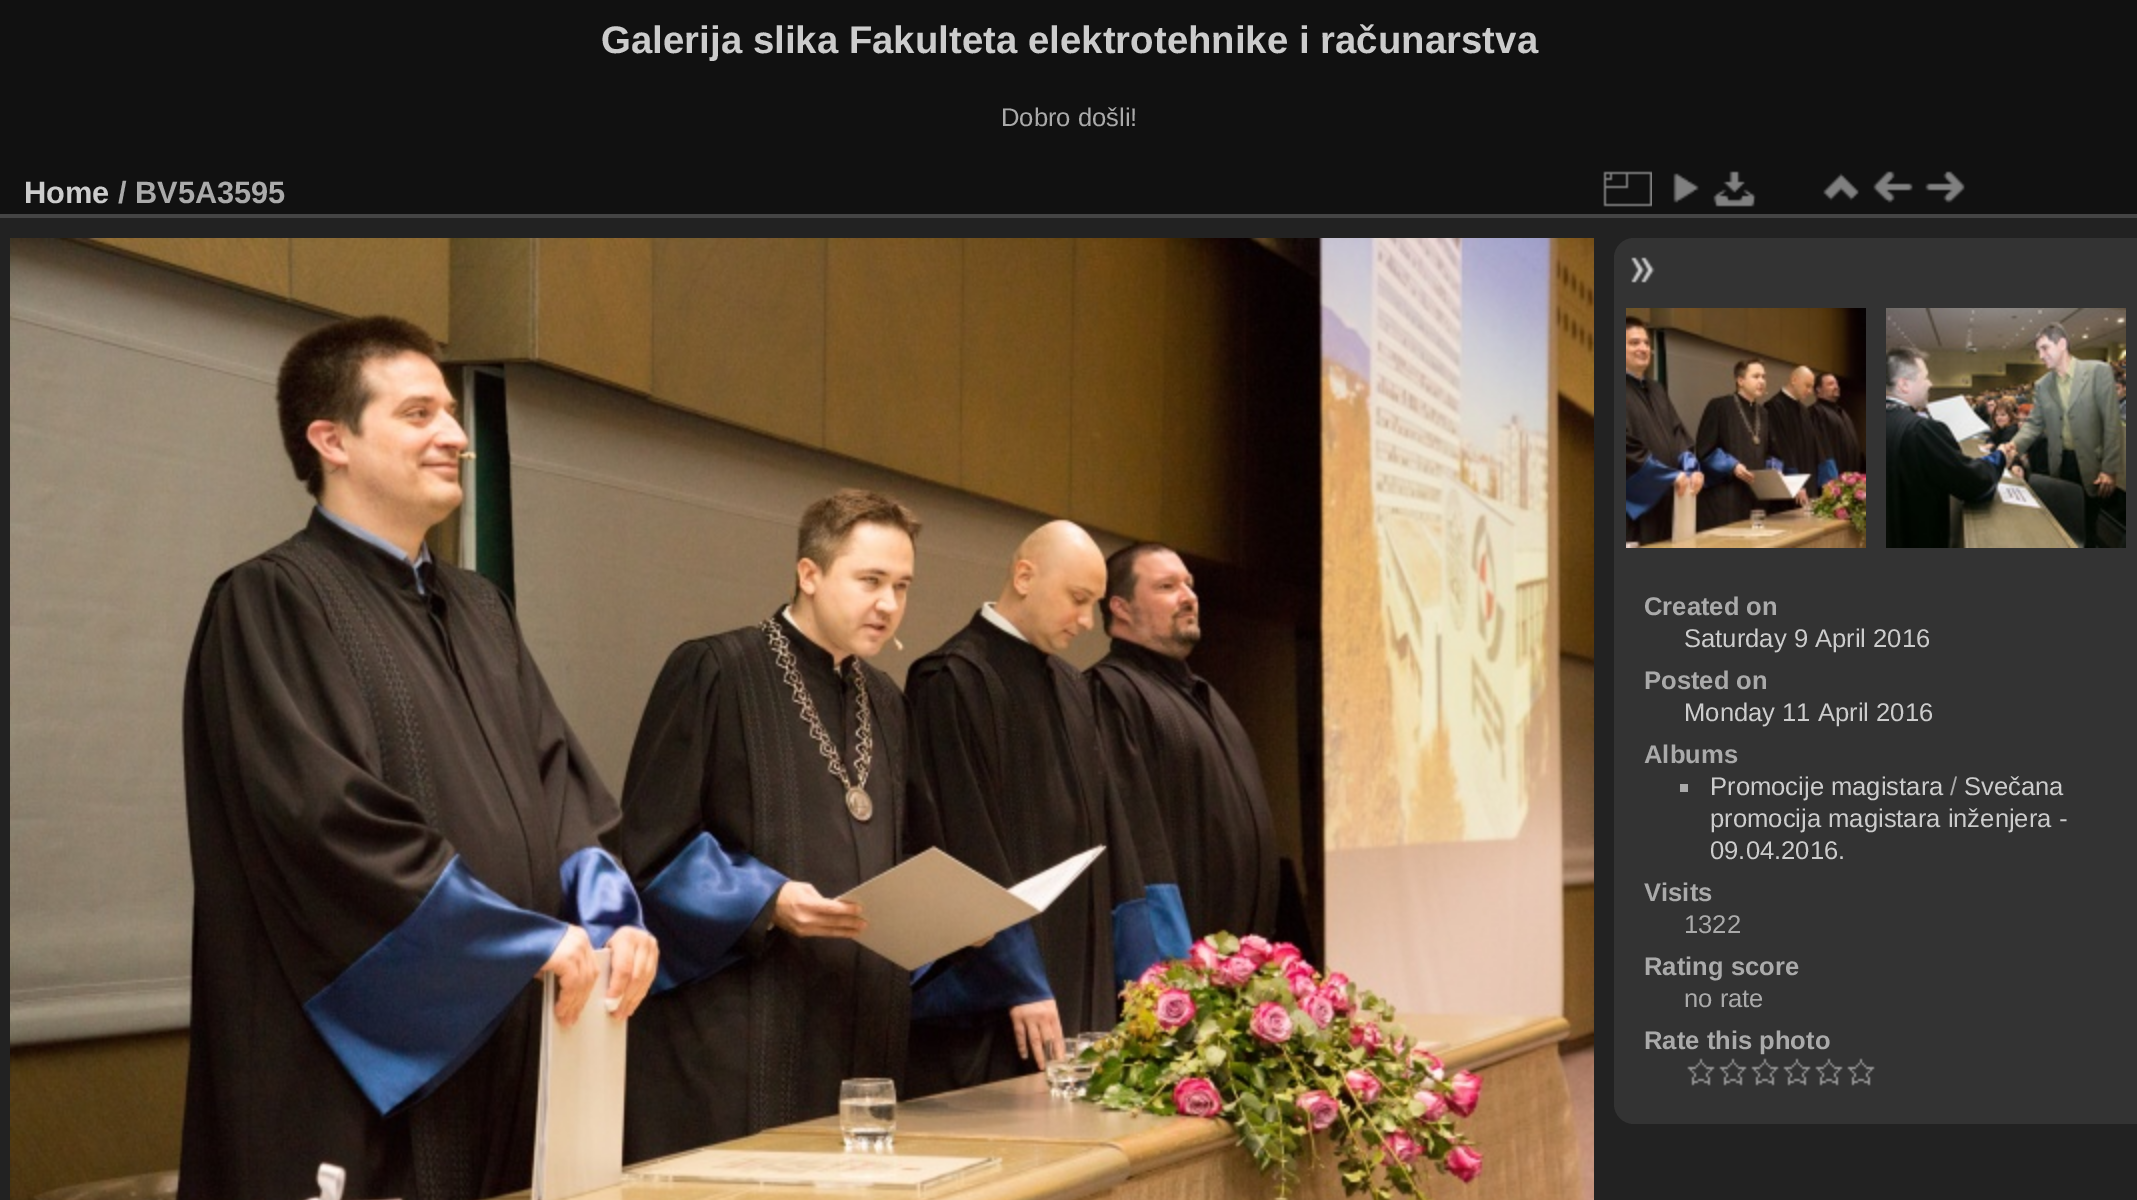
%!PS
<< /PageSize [2137 1200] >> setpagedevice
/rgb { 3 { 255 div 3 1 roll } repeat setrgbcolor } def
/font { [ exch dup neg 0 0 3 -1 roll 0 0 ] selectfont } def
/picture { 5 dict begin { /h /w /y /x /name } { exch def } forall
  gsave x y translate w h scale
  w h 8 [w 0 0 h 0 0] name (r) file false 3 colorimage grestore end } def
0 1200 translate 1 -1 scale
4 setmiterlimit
17 17 17 rgb
0 0 2137 1200 rectfill
34 34 34 rgb
0 218 2137 982 rectfill
68 68 68 rgb
0 214 2137 4 rectfill
(img/1.rgb) 1603 171 49 36 picture
(img/2.rgb) 1673 173 26 30 picture
(img/3.rgb) 1713 171 43 36 picture
(img/4.rgb) 1823 173 36 28 picture
(img/5.rgb) 1873 171 40 32 picture
(img/6.rgb) 1925 171 40 32 picture
(img/7.rgb) 10 238 1584 962 picture
51 51 51 rgb
1634 238 moveto 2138 238 lineto 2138 1124 lineto 1634 1124 lineto 1623 1124 1614 1115 1614 1104 curveto 1614 258 lineto 1614 247 1623 238 1634 238 curveto closepath fill
(img/8.rgb) 1631 257 24 26 picture
(img/9.rgb) 1626 308 240 240 picture
(img/10.rgb) 1886 308 240 240 picture
170 170 170 rgb
1680 784 8 8 rectfill
(img/11.rgb) 1687 1058 28 28 picture
(img/11.rgb) 1719 1058 28 28 picture
(img/11.rgb) 1751 1058 28 28 picture
(img/11.rgb) 1783 1058 28 28 picture
(img/11.rgb) 1815 1058 28 28 picture
(img/11.rgb) 1847 1058 28 28 picture
/LiberationSans-Bold 38.4 font
204 204 204 rgb
601 53 moveto (Galerija slika Fakulteta elektrotehnike i računarstva) show
/LiberationSans-Regular 25.6 font
170 170 170 rgb
1001 126 moveto (Dobro došli!) show
/LiberationSans-Bold 30.75 font
204 204 204 rgb
24 203 moveto (Home) show
170 170 170 rgb
118 203 moveto (/ BV5A3595) show
/LiberationSans-Bold 25.6 font
1644 615 moveto (Created on) show
/LiberationSans-Regular 25.6 font
204 204 204 rgb
1684 647 moveto (Saturday 9 April 2016) show
/LiberationSans-Bold 25.6 font
170 170 170 rgb
1644 689 moveto (Posted on) show
/LiberationSans-Regular 25.6 font
204 204 204 rgb
1684 721 moveto (Monday 11 April 2016) show
/LiberationSans-Bold 25.6 font
170 170 170 rgb
1644 763 moveto (Albums) show
/LiberationSans-Regular 25.6 font
204 204 204 rgb
1710 795 moveto (Promocije magistara) show
170 170 170 rgb
1950 795 moveto (/) show
204 204 204 rgb
[
  [(Svečana) 1964 795]
  [(promocija magistara inženjera -) 1710 827]
  [(09.04.2016.) 1710 859]
] { aload pop moveto show } forall
/LiberationSans-Bold 25.6 font
170 170 170 rgb
1644 901 moveto (Visits) show
/LiberationSans-Regular 25.6 font
1684 933 moveto (1322) show
/LiberationSans-Bold 25.6 font
1644 975 moveto (Rating score) show
/LiberationSans-Regular 25.6 font
1684 1007 moveto (no rate) show
/LiberationSans-Bold 25.6 font
1644 1049 moveto (Rate this photo) show
showpage
